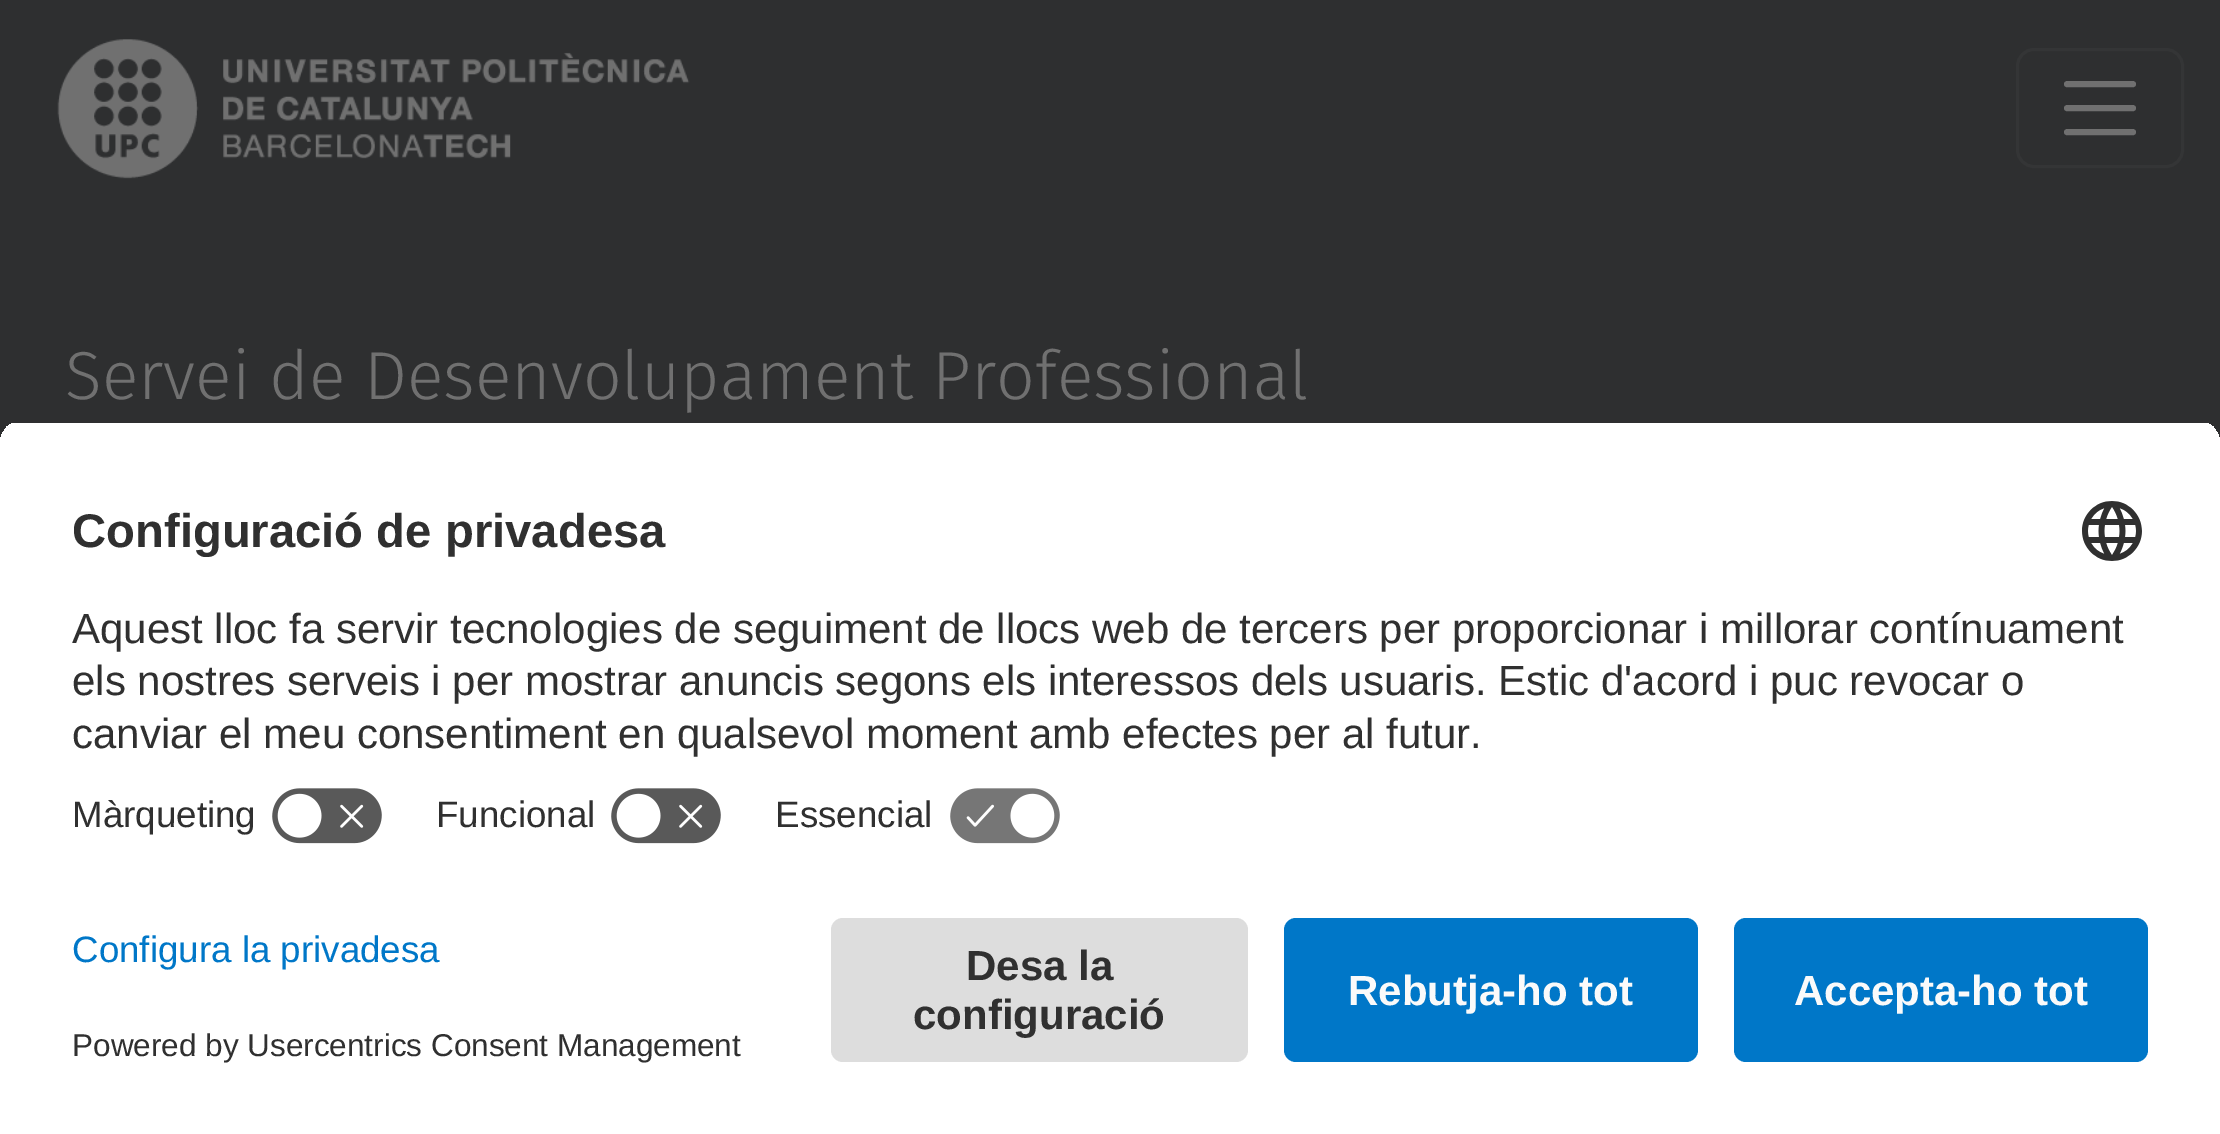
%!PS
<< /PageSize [2220 1134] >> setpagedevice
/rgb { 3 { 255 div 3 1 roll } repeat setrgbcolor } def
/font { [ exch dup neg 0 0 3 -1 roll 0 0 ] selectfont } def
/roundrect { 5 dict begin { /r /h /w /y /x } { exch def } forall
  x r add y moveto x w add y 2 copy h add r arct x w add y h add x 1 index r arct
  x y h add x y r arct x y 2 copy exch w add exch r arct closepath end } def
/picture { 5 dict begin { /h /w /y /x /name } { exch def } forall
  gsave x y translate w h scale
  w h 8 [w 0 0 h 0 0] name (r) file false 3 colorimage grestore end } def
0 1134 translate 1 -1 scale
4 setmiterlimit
46 47 48 rgb
0 0 2220 1134 rectfill
(img/1.rgb) 57 39 633 140 picture
52 53 54 rgb
3 setlinewidth
2017.5 49.5 165 117 16.5 roundrect stroke
112 112 112 rgb
6 setlinewidth
1 setlinecap
2067 84 moveto 2133 84 lineto 2067 108 moveto 2133 108 lineto 2067 132 moveto 2133 132 lineto stroke
gsave
24 420 moveto 2196 420 lineto 2209.5 420 2220 430.5 2220 444 curveto 2220 894 lineto 0 894 lineto 0 444 lineto 0 430.5 10.5 420 24 420 curveto closepath clip newpath
255 255 255 rgb
0 423 2220 471 rectfill
0 423 2220 351 rectfill
grestore
(img/2.rgb) 2082 501 60 60 picture
(img/3.rgb) 272 788 110 56 picture
(img/3.rgb) 611 788 110 56 picture
(img/4.rgb) 950 788 110 56 picture
255 255 255 rgb
0 894 2220 240 rectfill
221 221 221 rgb
831 918 417 144 12 roundrect fill
0 119 200 rgb
1284 918 414 144 12 roundrect fill
1734 918 414 144 12 roundrect fill
/FiraSans-Light 67.9 font
112 112 112 rgb
65 399 moveto (Servei de Desenvolupament Professional) show
/LiberationSans-Bold 47.25 font
48 48 48 rgb
72 547 moveto (Configuració de privadesa) show
/LiberationSans-Regular 42 font
[
  [(Aquest lloc fa servir tecnologies de seguiment de llocs web de tercers per proporcionar i millorar contínuament) 72 643]
  [(els nostres serveis i per mostrar anuncis segons els interessos dels usuaris. Estic d'acord i puc revocar o) 72 695]
  [(canviar el meu consentiment en qualsevol moment amb efectes per al futur.) 72 748]
] { aload pop moveto show } forall
/LiberationSans-Regular 36.75 font
[
  [(Màrqueting) 72 827]
  [(Funcional) 436 827]
  [(Essencial) 775 827]
] { aload pop moveto show } forall
0 119 200 rgb
72 962 moveto (Configura la privadesa) show
/LiberationSans-Regular 31.5 font
48 48 48 rgb
72 1056 moveto (Powered by Usercentrics Consent Management) show
/LiberationSans-Bold 42 font
966 980 moveto (Desa la) show
913 1029 moveto (configuració) show
250 250 250 rgb
1348 1005 moveto (Rebutja-ho tot) show
1794 1005 moveto (Accepta-ho tot) show
showpage
